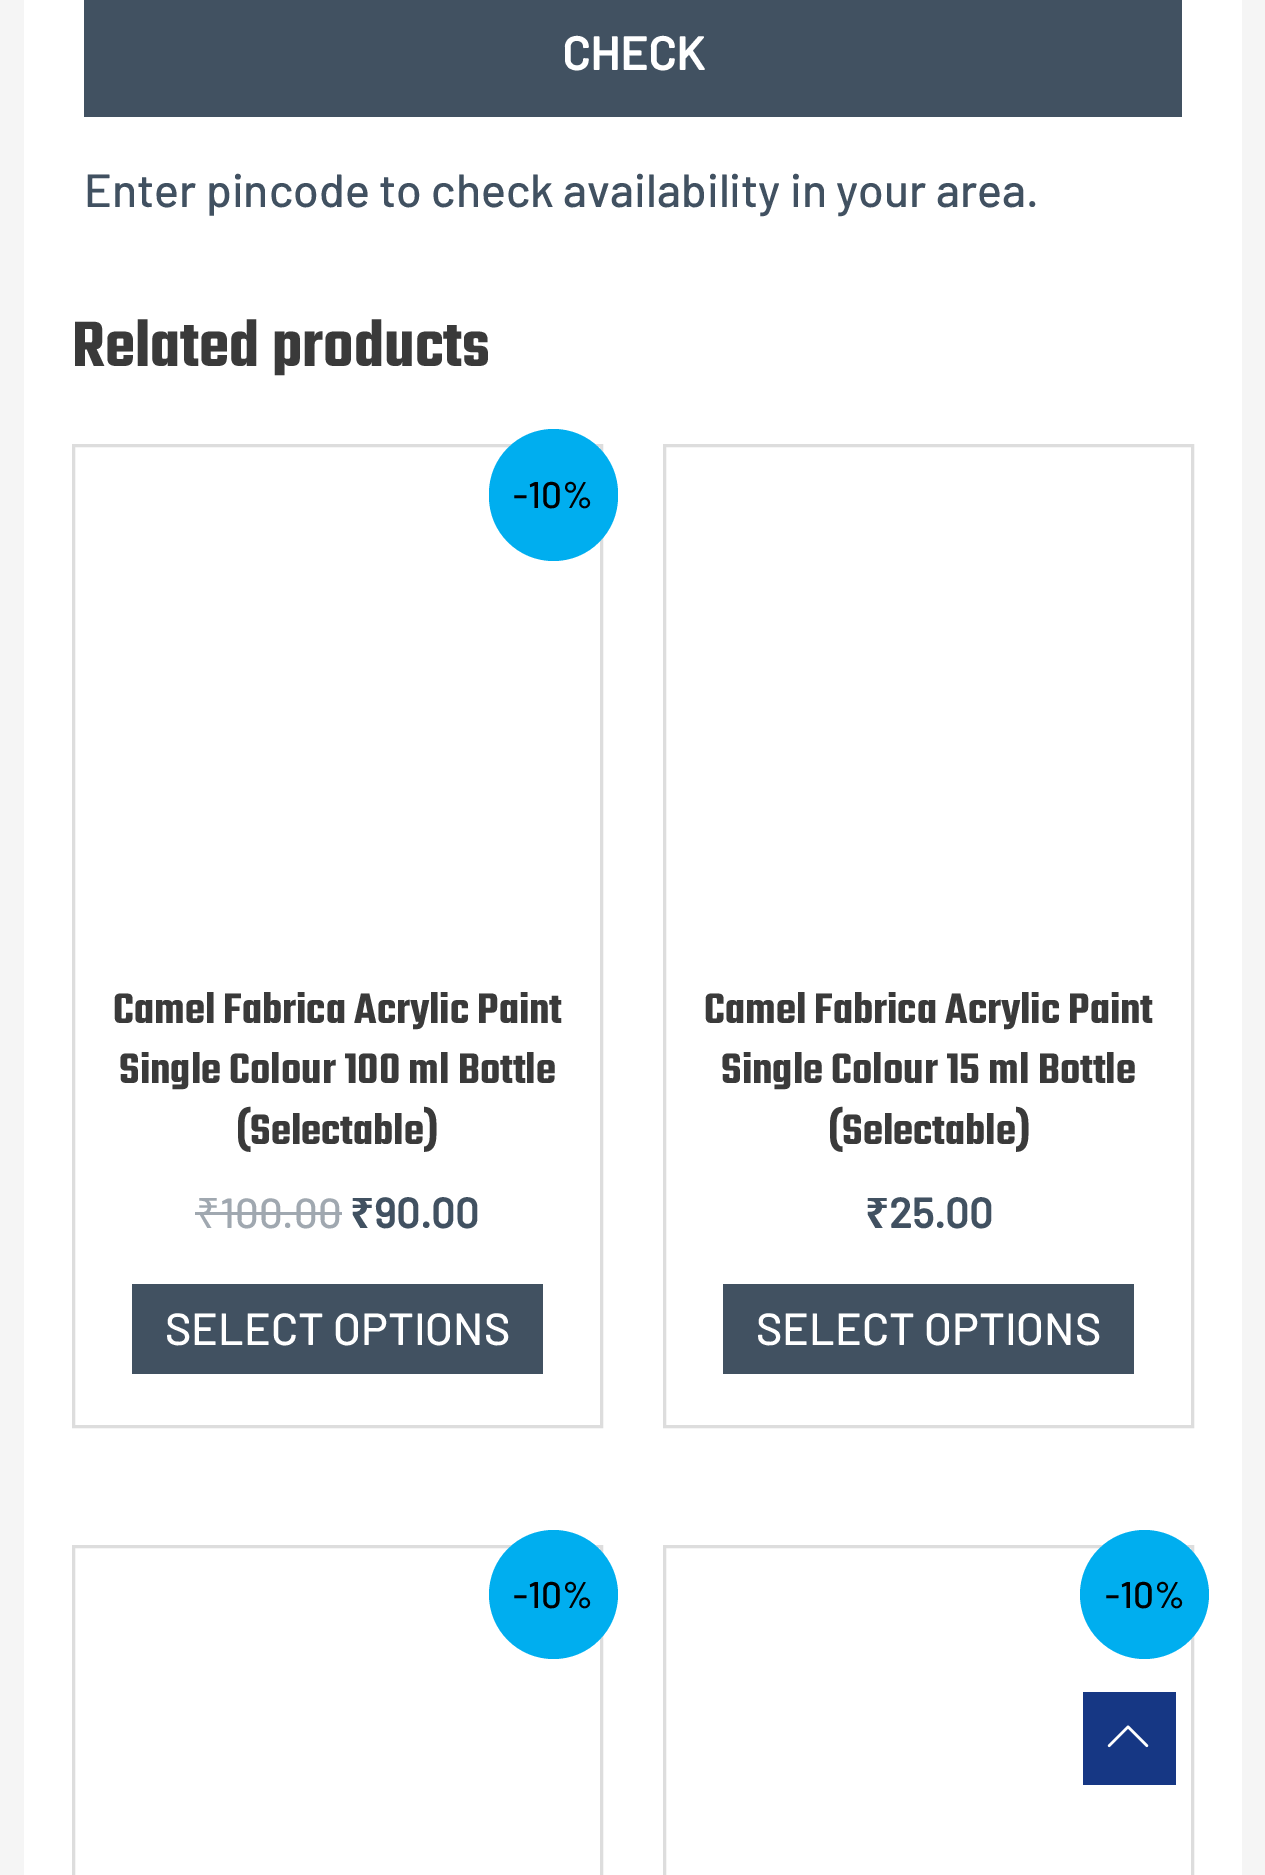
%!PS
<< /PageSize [1265 1875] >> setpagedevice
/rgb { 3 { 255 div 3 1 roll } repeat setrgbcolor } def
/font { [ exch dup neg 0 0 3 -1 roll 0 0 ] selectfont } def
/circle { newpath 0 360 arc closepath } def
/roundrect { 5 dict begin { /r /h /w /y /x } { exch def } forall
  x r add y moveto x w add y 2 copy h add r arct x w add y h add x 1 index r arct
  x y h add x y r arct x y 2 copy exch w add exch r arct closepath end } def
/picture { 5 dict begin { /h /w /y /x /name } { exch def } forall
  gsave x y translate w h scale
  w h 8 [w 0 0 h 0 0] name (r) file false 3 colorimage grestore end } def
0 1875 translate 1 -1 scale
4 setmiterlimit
245 245 245 rgb
0 0 1265 1875 rectfill
255 255 255 rgb
24 0 1218 1875 rectfill
65 81 97 rgb
84 0 1098 117 rectfill
221 221 221 rgb
3 setlinewidth
73.5 445.5 528 981 rectstroke
0 174 239 rgb
489 429 129 132 64.5 roundrect fill
[
  [195 1212 24 3 160 168 176]
  [219 1212 123 3 160 168 176]
  [132 1284 411 90 65 81 97]
] { aload pop rgb rectfill } forall
221 221 221 rgb
664.5 445.5 528 981 rectstroke
65 81 97 rgb
723 1284 411 90 rectfill
221 221 221 rgb
73.5 1546.5 528 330 rectstroke
0 174 239 rgb
553.5 1594.5 64.5 circle fill
221 221 221 rgb
664.5 1546.5 528 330 rectstroke
0 174 239 rgb
1144.5 1594.5 64.5 circle fill
22 55 132 rgb
1083 1692 93 93 rectfill
(img/1.rgb) 1107 1725 42 23 picture
/Barlow-Bold 46.5 font
255 255 255 rgb
562 70 moveto (CHECK) show
/Barlow-Medium 46.5 font
65 81 97 rgb
84 207 moveto (Enter pincode to check availability in your area.) show
/Teko-SemiBold 69.75 font
58 58 58 rgb
72 366 moveto (Related products) show
/Barlow-Medium 37 font
0 0 0 rgb
513 508 moveto (-10%) show
/Teko-SemiBold 46.5 font
58 58 58 rgb
[
  [(Camel Fabrica Acrylic Paint) 113 1023]
  [(Single Colour 100 ml Bottle) 119 1083]
  [(\(Selectable\)) 236 1144]
] { aload pop moveto show } forall
/NotoSans-Regular 42 font
160 168 176 rgb
196 1228 moveto (₹) show
/Barlow-Medium 42 font
220 1228 moveto (100.00) show
/NotoSans-Bold 42 font
65 81 97 rgb
350 1228 moveto (₹) show
/Barlow-Bold 42 font
374 1228 moveto (90.00) show
/Barlow-Medium 45 font
255 255 255 rgb
165 1345 moveto (SELECT OPTIONS) show
/Teko-SemiBold 46.5 font
58 58 58 rgb
[
  [(Camel Fabrica Acrylic Paint) 704 1023]
  [(Single Colour 15 ml Bottle) 721 1083]
  [(\(Selectable\)) 828 1144]
] { aload pop moveto show } forall
/NotoSans-Bold 42 font
65 81 97 rgb
865 1228 moveto (₹) show
/Barlow-Bold 42 font
889 1228 moveto (25.00) show
/Barlow-Medium 45 font
255 255 255 rgb
756 1345 moveto (SELECT OPTIONS) show
/Barlow-Medium 37 font
0 0 0 rgb
513 1608 moveto (-10%) show
1105 1608 moveto (-10%) show
showpage
